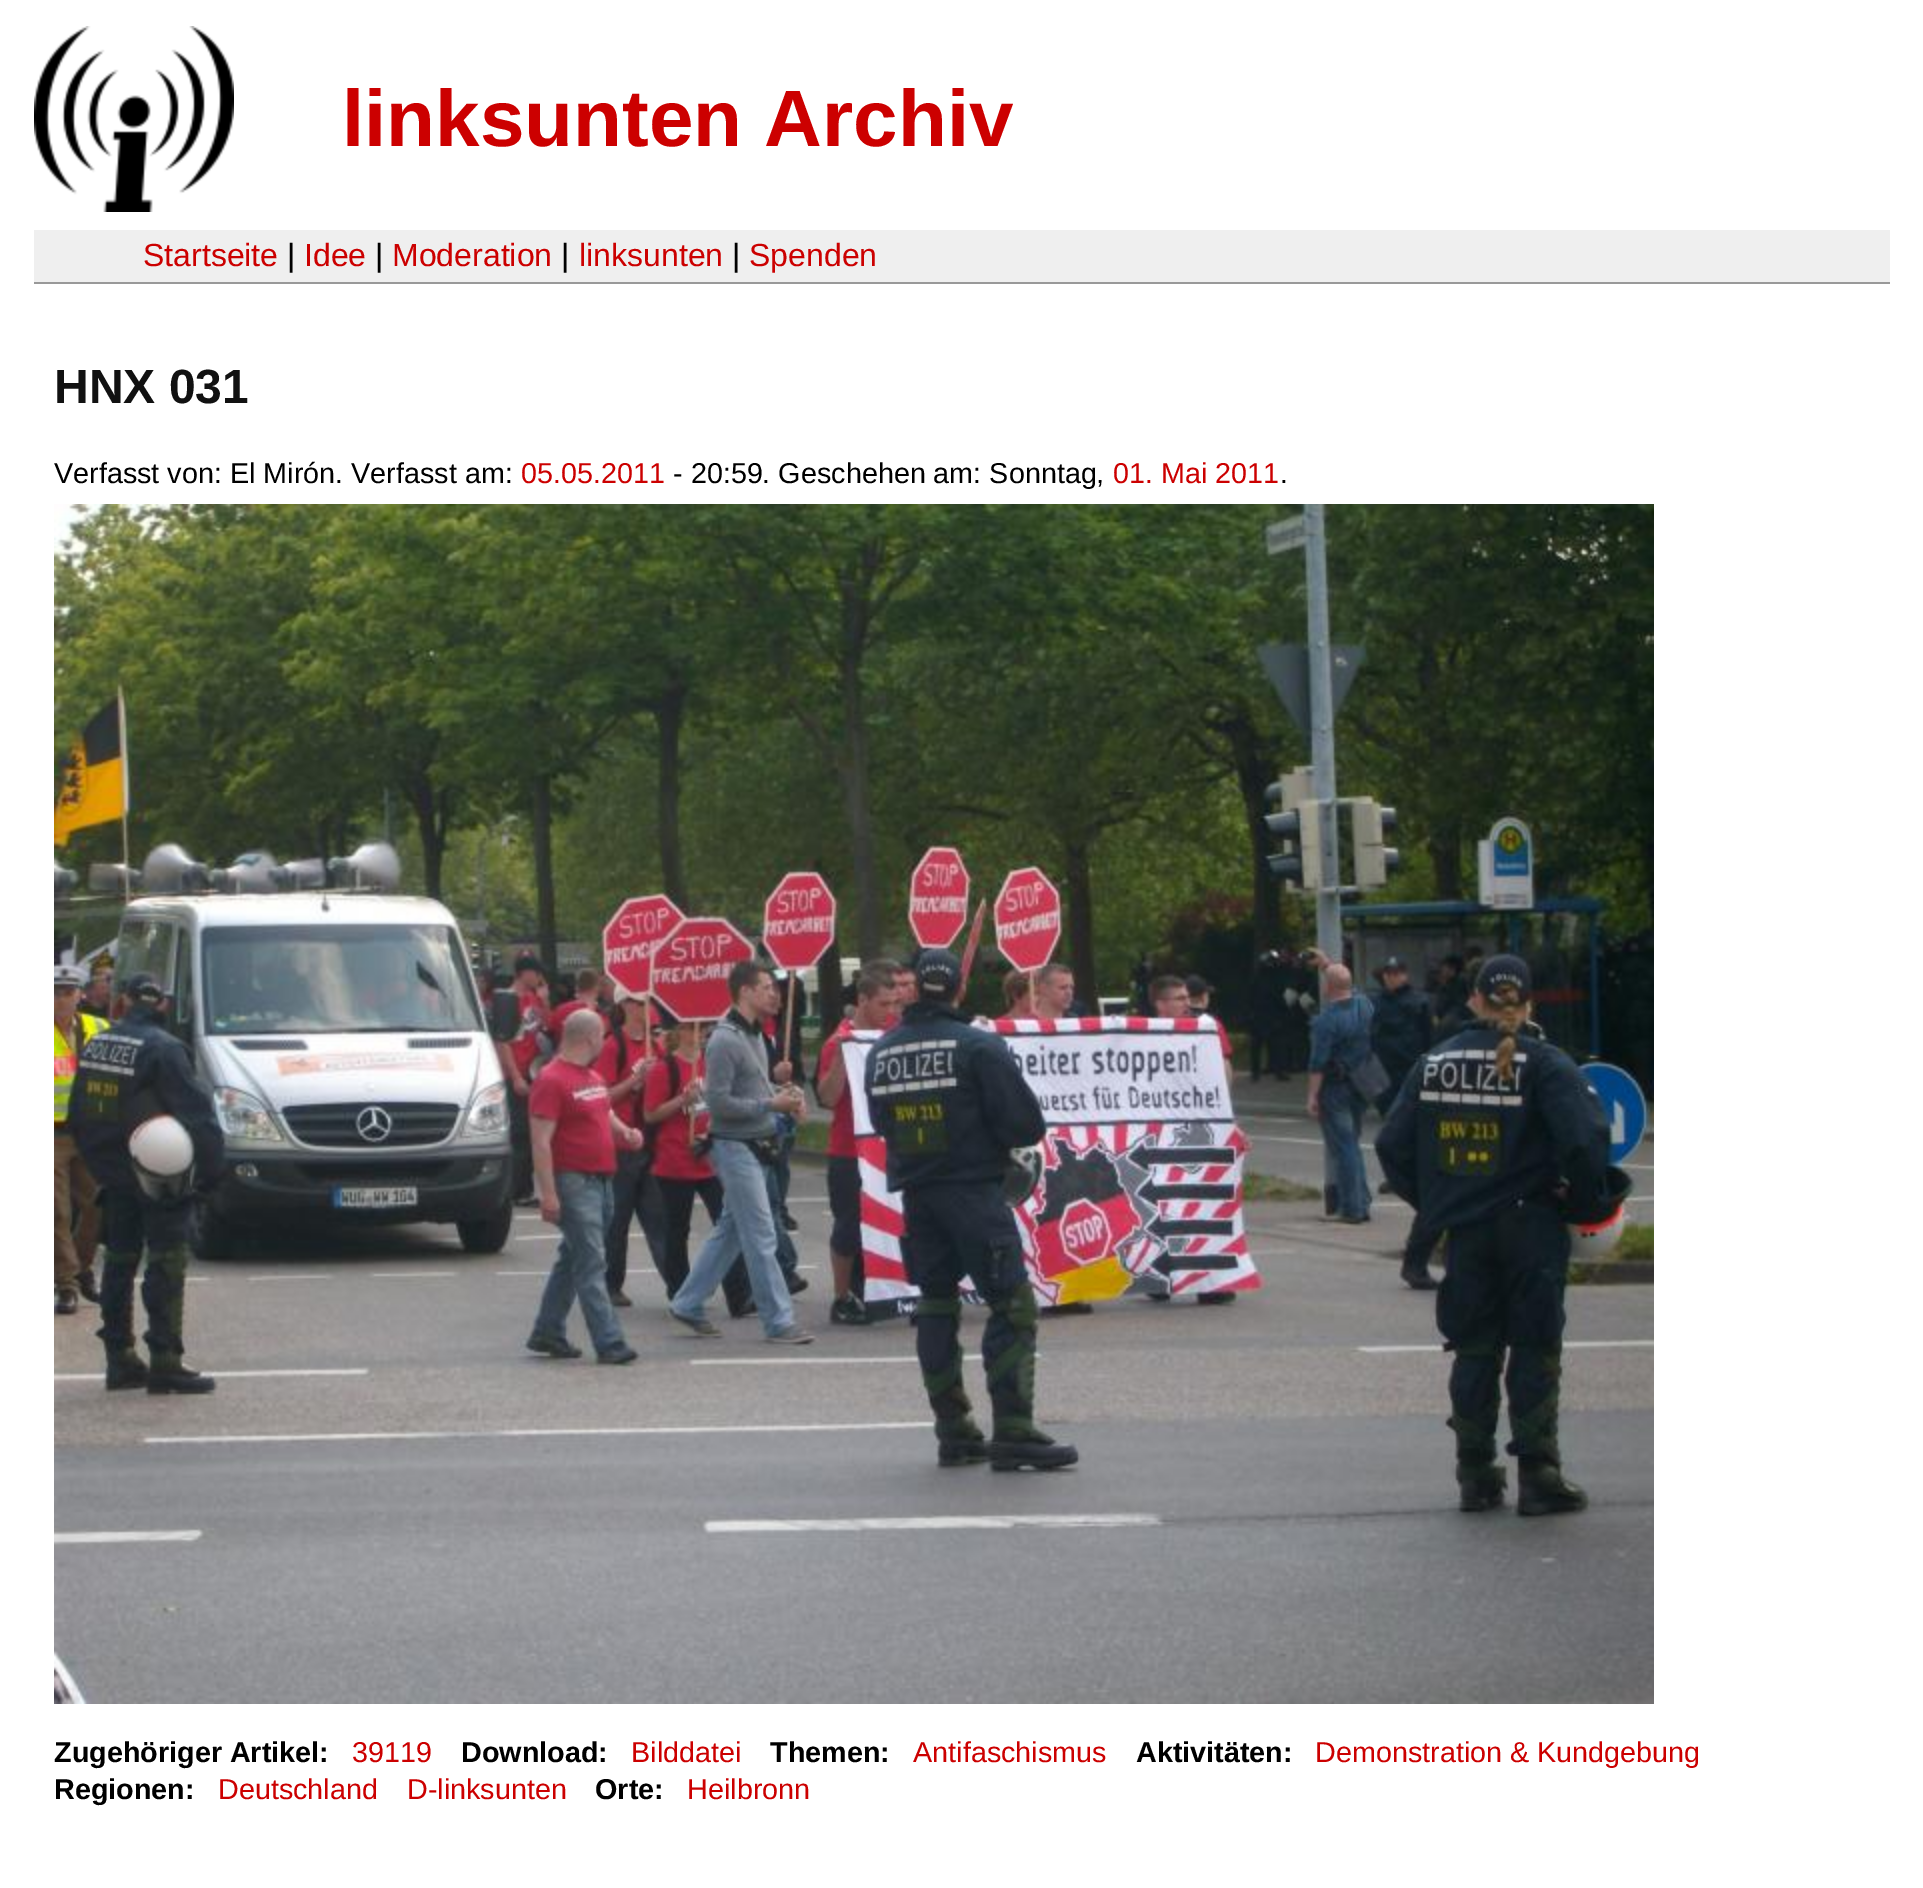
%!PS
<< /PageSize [1923 1888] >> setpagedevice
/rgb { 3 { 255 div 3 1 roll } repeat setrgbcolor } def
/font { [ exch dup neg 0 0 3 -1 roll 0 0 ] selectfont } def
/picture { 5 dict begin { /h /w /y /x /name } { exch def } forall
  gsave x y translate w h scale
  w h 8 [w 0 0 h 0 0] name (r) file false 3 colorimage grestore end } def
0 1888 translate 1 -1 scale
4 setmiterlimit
255 255 255 rgb
0 0 1923 1888 rectfill
(img/1.rgb) 34 26 200 186 picture
239 239 239 rgb
34 230 1856 52 rectfill
153 153 153 rgb
34 282 1856 2 rectfill
(img/2.rgb) 54 504 1600 1200 picture
/LiberationSans-Bold 80 font
204 0 0 rgb
342 146 moveto (linksunten Archiv) show
/LiberationSans-Regular 32 font
143 266 moveto (Startseite) show
0 0 0 rgb
287 266 moveto (|) show
204 0 0 rgb
304 266 moveto (Idee) show
0 0 0 rgb
375 266 moveto (|) show
204 0 0 rgb
392 266 moveto (Moderation) show
0 0 0 rgb
561 266 moveto (|) show
204 0 0 rgb
579 266 moveto (linksunten) show
0 0 0 rgb
732 266 moveto (|) show
204 0 0 rgb
749 266 moveto (Spenden) show
/LiberationSans-Bold 48 font
17 17 17 rgb
54 403 moveto (HNX 031) show
/LiberationSans-Regular 28.75 font
0 0 0 rgb
54 483 moveto (Verfasst von: El Mirón. Verfasst am:) show
204 0 0 rgb
521 483 moveto (05.05.2011) show
0 0 0 rgb
673 483 moveto (- 20:59. Geschehen am: Sonntag,) show
204 0 0 rgb
1113 483 moveto (01. Mai 2011) show
0 0 0 rgb
1280 483 moveto (.) show
/LiberationSans-Bold 28.75 font
54 1762 moveto (Zugehöriger Artikel:) show
/LiberationSans-Regular 28.75 font
204 0 0 rgb
352 1762 moveto (39119) show
/LiberationSans-Bold 28.75 font
0 0 0 rgb
461 1762 moveto (Download:) show
/LiberationSans-Regular 28.75 font
204 0 0 rgb
631 1762 moveto (Bilddatei) show
/LiberationSans-Bold 28.75 font
0 0 0 rgb
770 1762 moveto (Themen:) show
/LiberationSans-Regular 28.75 font
204 0 0 rgb
913 1762 moveto (Antifaschismus) show
/LiberationSans-Bold 28.75 font
0 0 0 rgb
1136 1762 moveto (Aktivitäten:) show
/LiberationSans-Regular 28.75 font
204 0 0 rgb
1315 1762 moveto (Demonstration & Kundgebung) show
/LiberationSans-Bold 28.75 font
0 0 0 rgb
54 1799 moveto (Regionen:) show
/LiberationSans-Regular 28.75 font
204 0 0 rgb
218 1799 moveto (Deutschland) show
407 1799 moveto (D-linksunten) show
/LiberationSans-Bold 28.75 font
0 0 0 rgb
595 1799 moveto (Orte:) show
/LiberationSans-Regular 28.75 font
204 0 0 rgb
687 1799 moveto (Heilbronn) show
showpage
